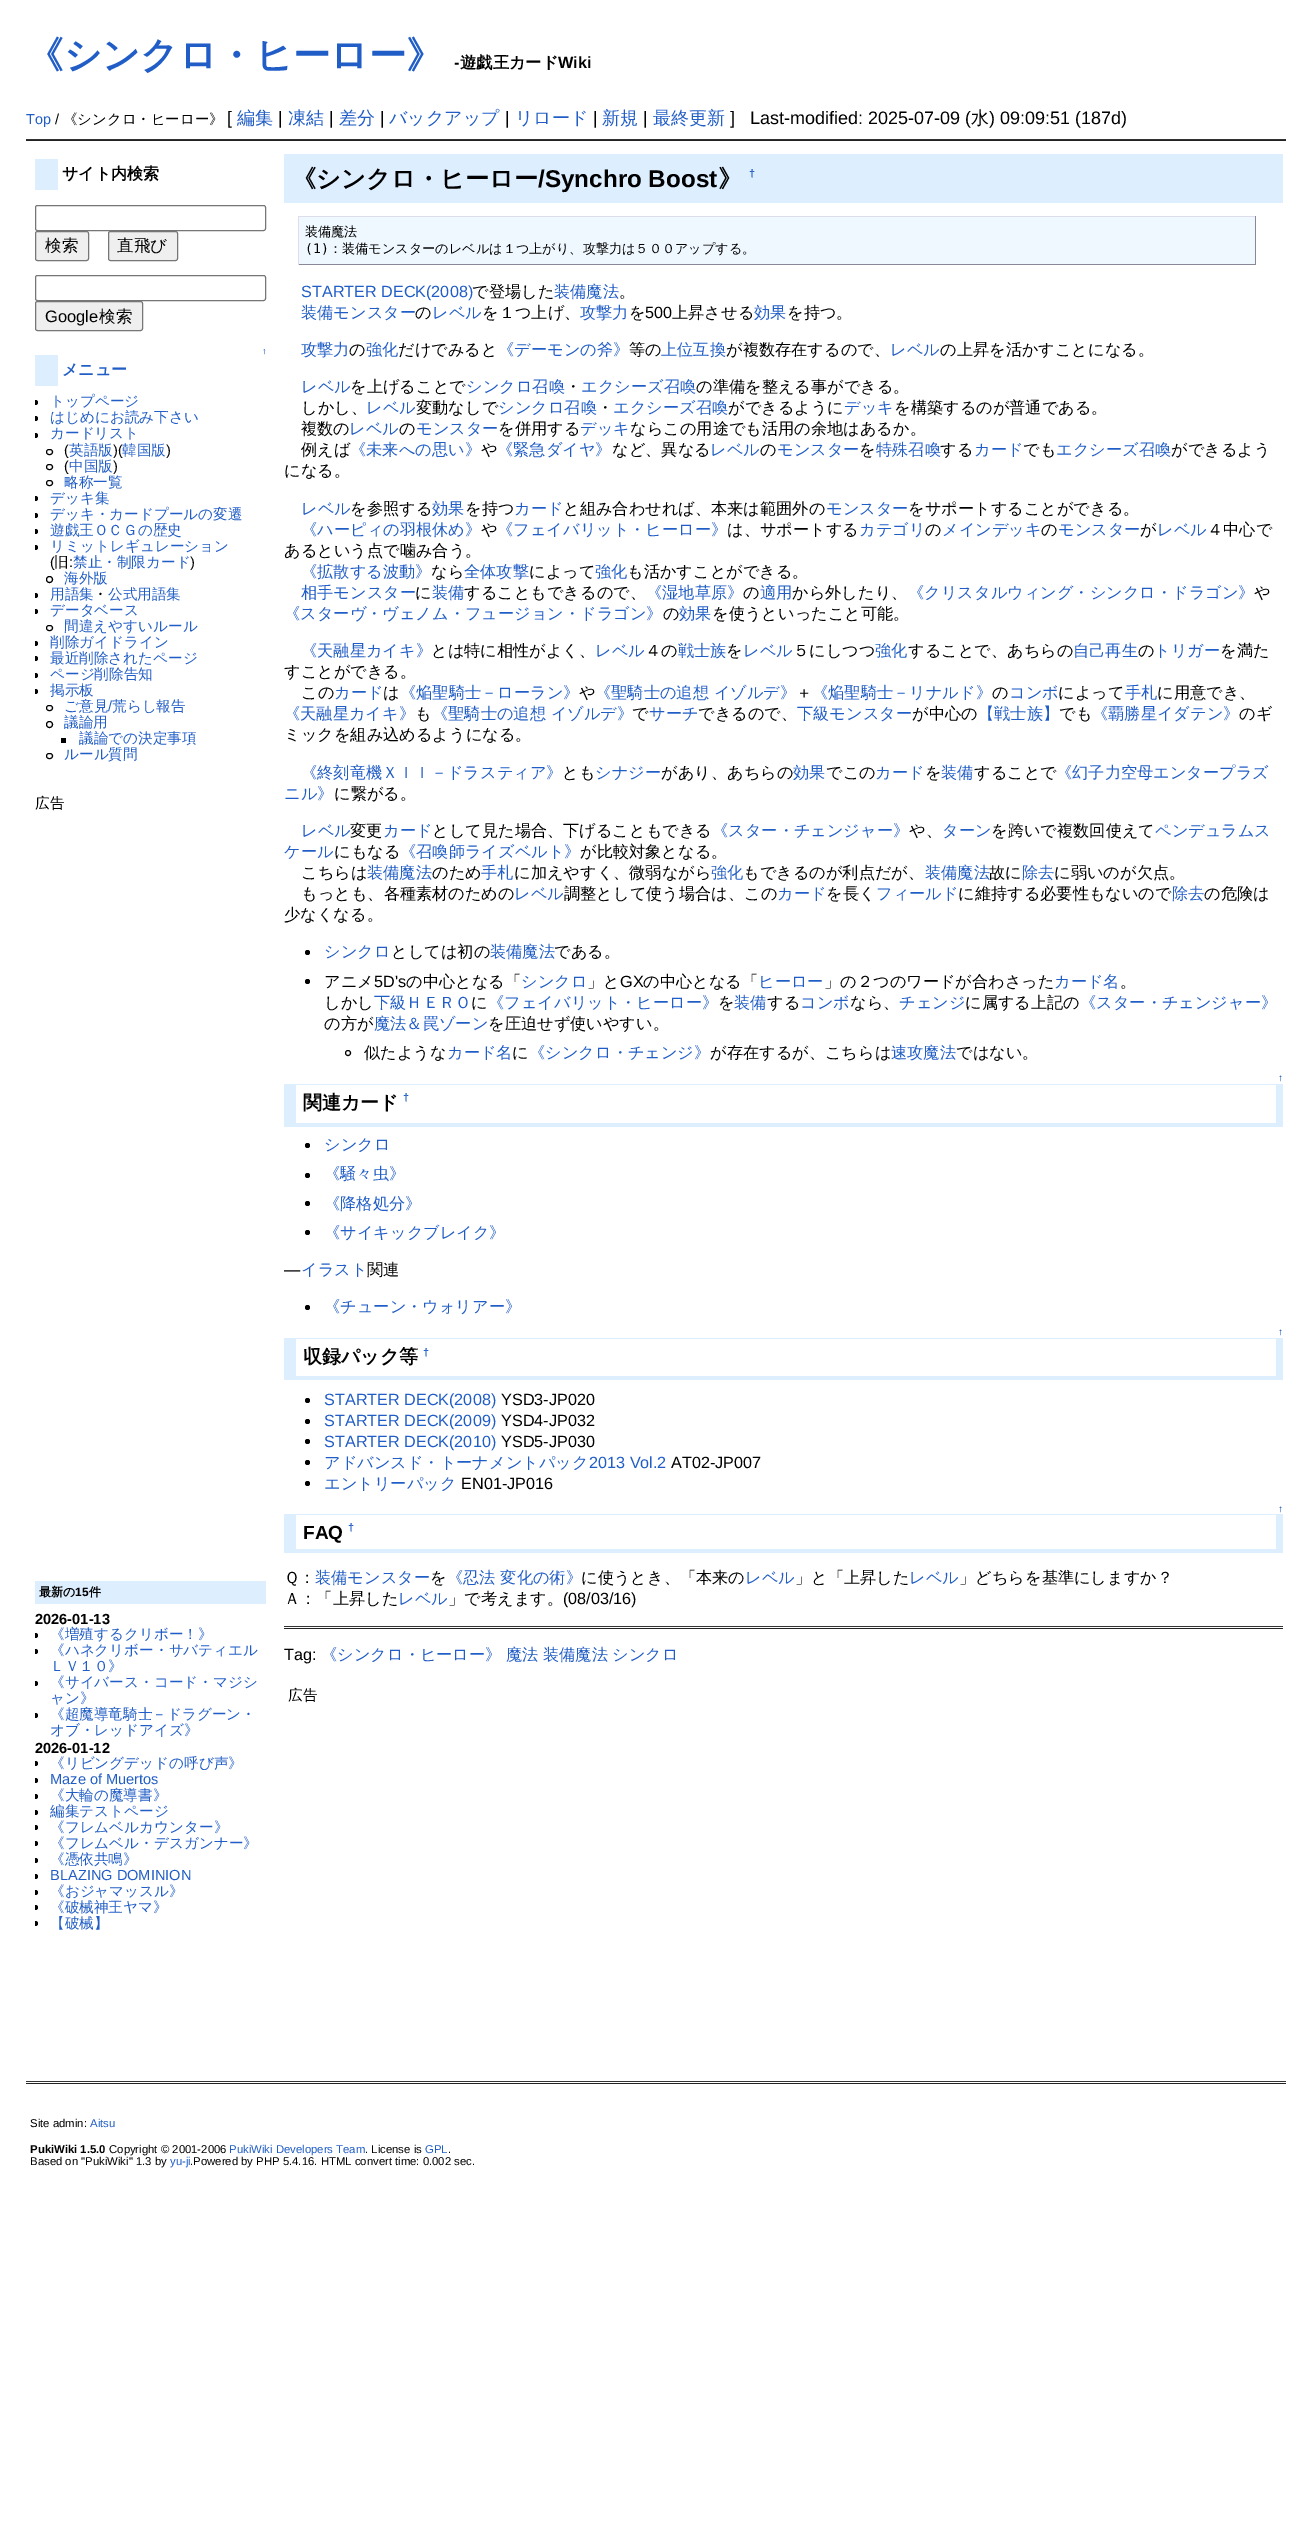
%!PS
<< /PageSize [1312 2538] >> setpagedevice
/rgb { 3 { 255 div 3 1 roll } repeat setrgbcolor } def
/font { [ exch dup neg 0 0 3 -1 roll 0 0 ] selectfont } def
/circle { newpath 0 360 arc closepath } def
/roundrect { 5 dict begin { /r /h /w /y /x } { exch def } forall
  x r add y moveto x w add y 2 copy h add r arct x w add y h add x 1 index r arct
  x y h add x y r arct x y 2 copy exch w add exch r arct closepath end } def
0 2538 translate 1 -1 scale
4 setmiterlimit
255 255 255 rgb
0 0 1312 2538 rectfill
[
  [26 139 1260 1 51 51 51]
  [26 140 1260 1 34 34 34]
  [35 159 23 31 221 238 255]
] { aload pop rgb rectfill } forall
118 118 118 rgb
35.5 205.5 230 25 2 roundrect stroke
239 239 239 rgb
35.5 231.5 53 29 2 roundrect gsave fill grestore
118 118 118 rgb
stroke
239 239 239 rgb
108.5 231.5 69 29 2 roundrect gsave fill grestore
118 118 118 rgb
stroke
35.5 275.5 230 25 2 roundrect stroke
239 239 239 rgb
35.5 301.5 107 29 2 roundrect gsave fill grestore
118 118 118 rgb
stroke
221 238 255 rgb
35 355 23 31 rectfill
gsave
35 159 231 1772 rectclip
0 0 0 rgb
35.5 402.5 2.5 circle fill
35.5 418.5 2.5 circle fill
35.5 435.5 2.5 circle fill
grestore
0 0 0 rgb
46.5 449.5 6 5 2.5 roundrect stroke
46.5 464.5 6 5 2.5 roundrect stroke
46.5 480.5 6 5 2.5 roundrect stroke
gsave
35 159 231 1772 rectclip
35.5 498.5 2.5 circle fill
35.5 515.5 2.5 circle fill
35.5 531.5 2.5 circle fill
35.5 547.5 2.5 circle fill
grestore
49.5 579.5 3 circle stroke
gsave
35 159 231 1772 rectclip
35.5 595.5 2.5 circle fill
35.5 611.5 2.5 circle fill
grestore
46.5 625.5 6 5 2.5 roundrect stroke
gsave
35 159 231 1772 rectclip
35.5 643.5 2.5 circle fill
35.5 658.5 2.5 circle fill
35.5 675.5 2.5 circle fill
35.5 691.5 2.5 circle fill
grestore
46.5 705.5 6 5 2.5 roundrect stroke
49.5 724.5 3 circle stroke
61 738 5 5 rectfill
46.5 753.5 6 5 2.5 roundrect stroke
221 238 255 rgb
35 1581 231 23 rectfill
gsave
35 159 231 1772 rectclip
0 0 0 rgb
35.5 1635.5 2.5 circle fill
35.5 1651.5 2.5 circle fill
35.5 1683.5 2.5 circle fill
35.5 1715.5 2.5 circle fill
35.5 1763.5 2.5 circle fill
35.5 1780.5 2.5 circle fill
35.5 1796.5 2.5 circle fill
35.5 1812.5 2.5 circle fill
35.5 1827.5 2.5 circle fill
35.5 1843.5 2.5 circle fill
35.5 1860.5 2.5 circle fill
35.5 1876.5 2.5 circle fill
35.5 1892.5 2.5 circle fill
35.5 1907.5 2.5 circle fill
35.5 1923.5 2.5 circle fill
grestore
[
  [284 154 999 49 221 238 255]
  [299 217 956 47 240 248 255]
  [298 216 958 1 221 221 238]
  [1255 216 1 49 136 136 153]
  [298 264 958 1 136 136 153]
  [298 216 1 49 221 221 238]
] { aload pop rgb rectfill } forall
0 0 0 rgb
307.5 952.5 2.5 circle fill
307.5 981.5 2.5 circle fill
348 1053 2.5 circle stroke
[
  [296 1084 987 1 221 238 255]
  [1276 1084 7 42 221 238 255]
  [284 1123 999 4 221 238 255]
  [284 1084 12 39 221 238 255]
] { aload pop rgb rectfill } forall
0 0 0 rgb
307.5 1145.5 2.5 circle fill
307.5 1175.5 2.5 circle fill
307.5 1203.5 2.5 circle fill
307.5 1232.5 2.5 circle fill
307.5 1307.5 2.5 circle fill
[
  [296 1338 987 1 221 238 255]
  [1276 1338 7 42 221 238 255]
  [296 1376 987 4 221 238 255]
  [284 1338 12 42 221 238 255]
] { aload pop rgb rectfill } forall
0 0 0 rgb
307.5 1400.5 2.5 circle fill
307.5 1421.5 2.5 circle fill
307.5 1441.5 2.5 circle fill
307.5 1462.5 2.5 circle fill
307.5 1483.5 2.5 circle fill
[
  [296 1514 987 1 221 238 255]
  [1276 1514 7 39 221 238 255]
  [296 1549 987 4 221 238 255]
  [284 1514 12 39 221 238 255]
  [284 1626 999 1 51 51 51]
  [284 1628 999 1 34 34 34]
  [26 2081 1260 1 51 51 51]
  [26 2083 1260 1 34 34 34]
] { aload pop rgb rectfill } forall
/WenQuanYiZenHei-Bold 37.5 font
33 93 198 rgb
26 68 moveto (《シンクロ・ヒーロー》) show
/LiberationSans-Bold 16.25 font
0 0 0 rgb
454 68 moveto (-) show
/WenQuanYiZenHei-Bold 16.25 font
460 68 moveto (遊戯王カード) show
/LiberationSans-Bold 16.25 font
558 68 moveto (Wiki) show
/LiberationSans-Regular 14.4 font
33 93 198 rgb
26 124 moveto (Top) show
0 0 0 rgb
55 124 moveto (/) show
/WenQuanYiZenHei-Medium 14.4 font
63 124 moveto (《シンクロ・ヒーロー》) show
/LiberationSans-Regular 18 font
227 124 moveto ([) show
/WenQuanYiZenHei-Medium 18 font
33 93 198 rgb
237 124 moveto (編集) show
/LiberationSans-Regular 18 font
0 0 0 rgb
278 124 moveto (|) show
/WenQuanYiZenHei-Medium 18 font
33 93 198 rgb
288 124 moveto (凍結) show
/LiberationSans-Regular 18 font
0 0 0 rgb
329 124 moveto (|) show
/WenQuanYiZenHei-Medium 18 font
33 93 198 rgb
339 124 moveto (差分) show
/LiberationSans-Regular 18 font
0 0 0 rgb
380 124 moveto (|) show
/WenQuanYiZenHei-Medium 18 font
33 93 198 rgb
389 124 moveto (バックアップ) show
/LiberationSans-Regular 18 font
0 0 0 rgb
505 124 moveto (|) show
/WenQuanYiZenHei-Medium 18 font
33 93 198 rgb
515 124 moveto (リロード) show
/LiberationSans-Regular 18 font
0 0 0 rgb
593 124 moveto (|) show
/WenQuanYiZenHei-Medium 18 font
33 93 198 rgb
602 124 moveto (新規) show
/LiberationSans-Regular 18 font
0 0 0 rgb
643 124 moveto (|) show
/WenQuanYiZenHei-Medium 18 font
33 93 198 rgb
653 124 moveto (最終更新) show
/LiberationSans-Regular 18 font
0 0 0 rgb
730 124 moveto (]   Last-modified: 2025-07-09 \() show
/WenQuanYiZenHei-Medium 18 font
971 124 moveto (水) show
/LiberationSans-Regular 18 font
989 124 moveto (\) 09:09:51 \(187d\)) show
/WenQuanYiZenHei-Bold 16 font
62 179 moveto (サイト内検索) show
/WenQuanYiZenHei-Medium 16.5 font
45 251 moveto (検索) show
117 251 moveto (直飛び) show
/LiberationSans-Regular 16.5 font
45 322 moveto (Google) show
/WenQuanYiZenHei-Medium 16.5 font
99 322 moveto (検索) show
/LiberationSans-Regular 9 font
33 93 198 rgb
262 354 moveto (↑) show
/WenQuanYiZenHei-Bold 16 font
62 375 moveto (メニュー) show
/WenQuanYiZenHei-Medium 14.6 font
[
  [(トップページ) 50 406]
  [(はじめにお読み下さい) 50 422]
  [(カードリスト) 50 438]
] { aload pop moveto show } forall
/LiberationSans-Regular 14.6 font
0 0 0 rgb
64 455 moveto (\() show
/WenQuanYiZenHei-Medium 14.6 font
33 93 198 rgb
69 455 moveto (英語版) show
/LiberationSans-Regular 14.6 font
0 0 0 rgb
113 455 moveto (\)\() show
/WenQuanYiZenHei-Medium 14.6 font
33 93 198 rgb
122 455 moveto (韓国版) show
/LiberationSans-Regular 14.6 font
0 0 0 rgb
166 455 moveto (\)) show
64 471 moveto (\() show
/WenQuanYiZenHei-Medium 14.6 font
33 93 198 rgb
69 471 moveto (中国版) show
/LiberationSans-Regular 14.6 font
0 0 0 rgb
113 471 moveto (\)) show
/WenQuanYiZenHei-Medium 14.6 font
33 93 198 rgb
[
  [(略称一覧) 64 487]
  [(デッキ集) 50 503]
  [(デッキ・カードプールの変遷) 50 519]
  [(遊戯王ＯＣＧの歴史) 50 535]
  [(リミットレギュレーション) 50 551]
] { aload pop moveto show } forall
/LiberationSans-Regular 14.6 font
0 0 0 rgb
50 567 moveto (\() show
/WenQuanYiZenHei-Medium 14.6 font
54 567 moveto (旧) show
/LiberationSans-Regular 14.6 font
69 567 moveto (:) show
/WenQuanYiZenHei-Medium 14.6 font
33 93 198 rgb
73 567 moveto (禁止・制限カード) show
/LiberationSans-Regular 14.6 font
0 0 0 rgb
190 567 moveto (\)) show
/WenQuanYiZenHei-Medium 14.6 font
33 93 198 rgb
64 583 moveto (海外版) show
50 599 moveto (用語集) show
0 0 0 rgb
93 599 moveto (・) show
33 93 198 rgb
[
  [(公式用語集) 108 599]
  [(データベース) 50 615]
  [(間違えやすいルール) 64 631]
  [(削除ガイドライン) 50 647]
  [(最近削除されたページ) 50 663]
  [(ページ削除告知) 50 679]
  [(掲示板) 50 695]
  [(ご意見) 64 711]
] { aload pop moveto show } forall
/LiberationSans-Regular 14.6 font
108 711 moveto (/) show
/WenQuanYiZenHei-Medium 14.6 font
[
  [(荒らし報告) 112 711]
  [(議論用) 64 727]
  [(議論での決定事項) 79 743]
  [(ルール質問) 64 759]
] { aload pop moveto show } forall
0 0 0 rgb
35 808 moveto (広告) show
/WenQuanYiZenHei-Bold 12 font
39 1596 moveto (最新の) show
/LiberationSans-Bold 12 font
75 1596 moveto (15) show
/WenQuanYiZenHei-Bold 12 font
89 1596 moveto (件) show
/LiberationSans-Bold 14.6 font
35 1624 moveto (2026-01-13) show
/WenQuanYiZenHei-Medium 14.6 font
33 93 198 rgb
[
  [(《増殖するクリボー！》) 50 1639]
  [(《ハネクリボー・サバティエル) 50 1655]
  [(ＬＶ１０》) 50 1671]
  [(《サイバース・コード・マジシ) 50 1687]
  [(ャン》) 50 1703]
  [(《超魔導竜騎士－ドラグーン・) 50 1719]
  [(オブ・レッドアイズ》) 50 1735]
] { aload pop moveto show } forall
/LiberationSans-Bold 14.6 font
0 0 0 rgb
35 1753 moveto (2026-01-12) show
/WenQuanYiZenHei-Medium 14.6 font
33 93 198 rgb
50 1768 moveto (《リビングデッドの呼び声》) show
/LiberationSans-Regular 14.6 font
50 1784 moveto (Maze of Muertos) show
/WenQuanYiZenHei-Medium 14.6 font
[
  [(《大輪の魔導書》) 50 1800]
  [(編集テストページ) 50 1816]
  [(《フレムベルカウンター》) 50 1832]
  [(《フレムベル・デスガンナー》) 50 1848]
  [(《憑依共鳴》) 50 1864]
] { aload pop moveto show } forall
/LiberationSans-Regular 14.6 font
50 1880 moveto (BLAZING DOMINION) show
/WenQuanYiZenHei-Medium 14.6 font
[
  [(《おジャマッスル》) 50 1896]
  [(《破械神王ヤマ》) 50 1912]
  [(【破械】) 50 1928]
] { aload pop moveto show } forall
/WenQuanYiZenHei-Bold 24.25 font
0 0 0 rgb
292 187 moveto (《シンクロ・ヒーロー) show
/LiberationSans-Bold 24.25 font
538 187 moveto (/Synchro Boost) show
/WenQuanYiZenHei-Bold 24.25 font
718 187 moveto (》) show
/LiberationSans-Bold 11 font
33 93 198 rgb
749 177 moveto (†) show
/WenQuanYiZenHei-Medium 13.15 font
0 0 0 rgb
305 236 moveto (装備魔法) show
/DejaVuSansMono-Regular 13.15 font
305 253 moveto (\(1\)) show
/WenQuanYiZenHei-Medium 13.15 font
329 253 moveto (：装備モンスターのレベルは１つ上がり、攻撃力は５００アップする。) show
/LiberationSans-Regular 16.2 font
33 93 198 rgb
301 297 moveto (STARTER DECK\(2008\)) show
/WenQuanYiZenHei-Medium 16.2 font
0 0 0 rgb
472 297 moveto (で登場した) show
33 93 198 rgb
554 297 moveto (装備魔法) show
0 0 0 rgb
619 297 moveto (。) show
33 93 198 rgb
301 318 moveto (装備モンスター) show
0 0 0 rgb
415 318 moveto (の) show
33 93 198 rgb
432 318 moveto (レベル) show
0 0 0 rgb
482 318 moveto (を１つ上げ、) show
33 93 198 rgb
580 318 moveto (攻撃力) show
0 0 0 rgb
629 318 moveto (を) show
/LiberationSans-Regular 16.2 font
645 318 moveto (500) show
/WenQuanYiZenHei-Medium 16.2 font
672 318 moveto (上昇させる) show
33 93 198 rgb
754 318 moveto (効果) show
0 0 0 rgb
787 318 moveto (を持つ。) show
33 93 198 rgb
301 355 moveto (攻撃力) show
0 0 0 rgb
349 355 moveto (の) show
33 93 198 rgb
366 355 moveto (強化) show
0 0 0 rgb
398 355 moveto (だけでみると) show
33 93 198 rgb
498 355 moveto (《デーモンの斧》) show
0 0 0 rgb
629 355 moveto (等の) show
33 93 198 rgb
661 355 moveto (上位互換) show
0 0 0 rgb
726 355 moveto (が複数存在するので、) show
33 93 198 rgb
890 355 moveto (レベル) show
0 0 0 rgb
940 355 moveto (の上昇を活かすことになる。) show
33 93 198 rgb
301 392 moveto (レベル) show
0 0 0 rgb
350 392 moveto (を上げることで) show
33 93 198 rgb
466 392 moveto (シンクロ召喚) show
0 0 0 rgb
565 392 moveto (・) show
33 93 198 rgb
581 392 moveto (エクシーズ召喚) show
0 0 0 rgb
696 392 moveto (の準備を整える事ができる。) show
301 413 moveto (しかし、) show
33 93 198 rgb
366 413 moveto (レベル) show
0 0 0 rgb
416 413 moveto (変動なしで) show
33 93 198 rgb
498 413 moveto (シンクロ召喚) show
0 0 0 rgb
597 413 moveto (・) show
33 93 198 rgb
613 413 moveto (エクシーズ召喚) show
0 0 0 rgb
728 413 moveto (ができるように) show
33 93 198 rgb
844 413 moveto (デッキ) show
0 0 0 rgb
894 413 moveto (を構築するのが普通である。) show
301 434 moveto (複数の) show
33 93 198 rgb
349 434 moveto (レベル) show
0 0 0 rgb
399 434 moveto (の) show
33 93 198 rgb
416 434 moveto (モンスター) show
0 0 0 rgb
498 434 moveto (を併用する) show
33 93 198 rgb
580 434 moveto (デッキ) show
0 0 0 rgb
630 434 moveto (ならこの用途でも活用の余地はあるか。) show
301 455 moveto (例えば) show
33 93 198 rgb
350 455 moveto (《未来への思い》) show
0 0 0 rgb
481 455 moveto (や) show
33 93 198 rgb
497 455 moveto (《緊急ダイヤ》) show
0 0 0 rgb
612 455 moveto (など、異なる) show
33 93 198 rgb
710 455 moveto (レベル) show
0 0 0 rgb
760 455 moveto (の) show
33 93 198 rgb
777 455 moveto (モンスター) show
0 0 0 rgb
859 455 moveto (を) show
33 93 198 rgb
876 455 moveto (特殊召喚) show
0 0 0 rgb
940 455 moveto (する) show
33 93 198 rgb
974 455 moveto (カード) show
0 0 0 rgb
1023 455 moveto (でも) show
33 93 198 rgb
1056 455 moveto (エクシーズ召喚) show
0 0 0 rgb
1171 455 moveto (ができるよう) show
284 476 moveto (になる。) show
33 93 198 rgb
301 514 moveto (レベル) show
0 0 0 rgb
350 514 moveto (を参照する) show
33 93 198 rgb
432 514 moveto (効果) show
0 0 0 rgb
465 514 moveto (を持つ) show
33 93 198 rgb
514 514 moveto (カード) show
0 0 0 rgb
563 514 moveto (と組み合わせれば、本来は範囲外の) show
33 93 198 rgb
826 514 moveto (モンスター) show
0 0 0 rgb
908 514 moveto (をサポートすることができる。) show
33 93 198 rgb
301 535 moveto (《ハーピィの羽根休め》) show
0 0 0 rgb
481 535 moveto (や) show
33 93 198 rgb
497 535 moveto (《フェイバリット・ヒーロー》) show
0 0 0 rgb
727 535 moveto (は、サポートする) show
33 93 198 rgb
859 535 moveto (カテゴリ) show
0 0 0 rgb
925 535 moveto (の) show
33 93 198 rgb
942 535 moveto (メインデッキ) show
0 0 0 rgb
1041 535 moveto (の) show
33 93 198 rgb
1058 535 moveto (モンスター) show
0 0 0 rgb
1140 535 moveto (が) show
33 93 198 rgb
1157 535 moveto (レベル) show
0 0 0 rgb
1207 535 moveto (４中心で) show
284 556 moveto (あるという点で噛み合う。) show
33 93 198 rgb
301 577 moveto (《拡散する波動》) show
0 0 0 rgb
431 577 moveto (なら) show
33 93 198 rgb
464 577 moveto (全体攻撃) show
0 0 0 rgb
529 577 moveto (によって) show
33 93 198 rgb
595 577 moveto (強化) show
0 0 0 rgb
627 577 moveto (も活かすことができる。) show
33 93 198 rgb
301 598 moveto (相手モンスター) show
0 0 0 rgb
415 598 moveto (に) show
33 93 198 rgb
432 598 moveto (装備) show
0 0 0 rgb
464 598 moveto (することもできるので、) show
33 93 198 rgb
646 598 moveto (《湿地草原》) show
0 0 0 rgb
743 598 moveto (の) show
33 93 198 rgb
760 598 moveto (適用) show
0 0 0 rgb
792 598 moveto (から外したり、) show
33 93 198 rgb
908 598 moveto (《クリスタルウィング・シンクロ・ドラゴン》) show
0 0 0 rgb
1254 598 moveto (や) show
33 93 198 rgb
284 619 moveto (《スターヴ・ヴェノム・フュージョン・ドラゴン》) show
0 0 0 rgb
663 619 moveto (の) show
33 93 198 rgb
679 619 moveto (効果) show
0 0 0 rgb
712 619 moveto (を使うといったこと可能。) show
33 93 198 rgb
301 656 moveto (《天融星カイキ》) show
0 0 0 rgb
431 656 moveto (とは特に相性がよく、) show
33 93 198 rgb
595 656 moveto (レベル) show
0 0 0 rgb
645 656 moveto (４の) show
33 93 198 rgb
678 656 moveto (戦士族) show
0 0 0 rgb
726 656 moveto (を) show
33 93 198 rgb
743 656 moveto (レベル) show
0 0 0 rgb
793 656 moveto (５にしつつ) show
33 93 198 rgb
875 656 moveto (強化) show
0 0 0 rgb
908 656 moveto (することで、あちらの) show
33 93 198 rgb
1073 656 moveto (自己再生) show
0 0 0 rgb
1138 656 moveto (の) show
33 93 198 rgb
1154 656 moveto (トリガー) show
0 0 0 rgb
[
  [(を満た) 1220 656]
  [(すことができる。) 284 677]
  [(この) 301 698]
] { aload pop moveto show } forall
33 93 198 rgb
334 698 moveto (カード) show
0 0 0 rgb
383 698 moveto (は) show
33 93 198 rgb
400 698 moveto (《焔聖騎士－ローラン》) show
0 0 0 rgb
579 698 moveto (や) show
33 93 198 rgb
595 698 moveto (《聖騎士の追想 イゾルデ》) show
0 0 0 rgb
796 698 moveto (＋) show
33 93 198 rgb
812 698 moveto (《焔聖騎士－リナルド》) show
0 0 0 rgb
992 698 moveto (の) show
33 93 198 rgb
1009 698 moveto (コンボ) show
0 0 0 rgb
1058 698 moveto (によって) show
33 93 198 rgb
1125 698 moveto (手札) show
0 0 0 rgb
1157 698 moveto (に用意でき、) show
33 93 198 rgb
284 719 moveto (《天融星カイキ》) show
0 0 0 rgb
415 719 moveto (も) show
33 93 198 rgb
432 719 moveto (《聖騎士の追想 イゾルデ》) show
0 0 0 rgb
632 719 moveto (で) show
33 93 198 rgb
649 719 moveto (サーチ) show
0 0 0 rgb
698 719 moveto (できるので、) show
33 93 198 rgb
797 719 moveto (下級モンスター) show
0 0 0 rgb
912 719 moveto (が中心の) show
33 93 198 rgb
978 719 moveto (【戦士族】) show
0 0 0 rgb
1059 719 moveto (でも) show
33 93 198 rgb
1092 719 moveto (《覇勝星イダテン》) show
0 0 0 rgb
1239 719 moveto (のギ) show
284 740 moveto (ミックを組み込めるようになる。) show
33 93 198 rgb
301 778 moveto (《終刻竜機ＸＩＩ－ドラスティア》) show
0 0 0 rgb
562 778 moveto (とも) show
33 93 198 rgb
595 778 moveto (シナジー) show
0 0 0 rgb
661 778 moveto (があり、あちらの) show
33 93 198 rgb
793 778 moveto (効果) show
0 0 0 rgb
826 778 moveto (でこの) show
33 93 198 rgb
875 778 moveto (カード) show
0 0 0 rgb
925 778 moveto (を) show
33 93 198 rgb
941 778 moveto (装備) show
0 0 0 rgb
974 778 moveto (することで) show
33 93 198 rgb
1056 778 moveto (《幻子力空母エンタープラズ) show
284 799 moveto (ニル》) show
0 0 0 rgb
334 799 moveto (に繋がる。) show
33 93 198 rgb
301 836 moveto (レベル) show
0 0 0 rgb
350 836 moveto (変更) show
33 93 198 rgb
383 836 moveto (カード) show
0 0 0 rgb
432 836 moveto (として見た場合、下げることもできる) show
33 93 198 rgb
712 836 moveto (《スター・チェンジャー》) show
0 0 0 rgb
909 836 moveto (や、) show
33 93 198 rgb
942 836 moveto (ターン) show
0 0 0 rgb
991 836 moveto (を跨いで複数回使えて) show
33 93 198 rgb
1155 836 moveto (ペンデュラムス) show
284 857 moveto (ケール) show
0 0 0 rgb
334 857 moveto (にもなる) show
33 93 198 rgb
400 857 moveto (《召喚師ライズベルト》) show
0 0 0 rgb
580 857 moveto (が比較対象となる。) show
301 878 moveto (こちらは) show
33 93 198 rgb
367 878 moveto (装備魔法) show
0 0 0 rgb
432 878 moveto (のため) show
33 93 198 rgb
481 878 moveto (手札) show
0 0 0 rgb
514 878 moveto (に加えやすく、微弱ながら) show
33 93 198 rgb
711 878 moveto (強化) show
0 0 0 rgb
743 878 moveto (もできるのが利点だが、) show
33 93 198 rgb
925 878 moveto (装備魔法) show
0 0 0 rgb
989 878 moveto (故に) show
33 93 198 rgb
1022 878 moveto (除去) show
0 0 0 rgb
1054 878 moveto (に弱いのが欠点。) show
301 899 moveto (もっとも、各種素材のための) show
33 93 198 rgb
514 899 moveto (レベル) show
0 0 0 rgb
564 899 moveto (調整として使う場合は、この) show
33 93 198 rgb
777 899 moveto (カード) show
0 0 0 rgb
826 899 moveto (を長く) show
33 93 198 rgb
876 899 moveto (フィールド) show
0 0 0 rgb
958 899 moveto (に維持する必要性もないので) show
33 93 198 rgb
1172 899 moveto (除去) show
0 0 0 rgb
1204 899 moveto (の危険は) show
284 920 moveto (少なくなる。) show
33 93 198 rgb
324 957 moveto (シンクロ) show
0 0 0 rgb
391 957 moveto (としては初の) show
33 93 198 rgb
490 957 moveto (装備魔法) show
0 0 0 rgb
554 957 moveto (である。) show
324 987 moveto (アニメ) show
/LiberationSans-Regular 16.2 font
374 987 moveto (5D's) show
/WenQuanYiZenHei-Medium 16.2 font
406 987 moveto (の中心となる「) show
33 93 198 rgb
521 987 moveto (シンクロ) show
0 0 0 rgb
587 987 moveto (」と) show
/LiberationSans-Regular 16.2 font
620 987 moveto (GX) show
/WenQuanYiZenHei-Medium 16.2 font
643 987 moveto (の中心となる「) show
33 93 198 rgb
758 987 moveto (ヒーロー) show
0 0 0 rgb
824 987 moveto (」の２つのワードが合わさった) show
33 93 198 rgb
1054 987 moveto (カード名) show
0 0 0 rgb
1120 987 moveto (。) show
324 1008 moveto (しかし) show
33 93 198 rgb
374 1008 moveto (下級ＨＥＲＯ) show
0 0 0 rgb
471 1008 moveto (に) show
33 93 198 rgb
488 1008 moveto (《フェイバリット・ヒーロー》) show
0 0 0 rgb
718 1008 moveto (を) show
33 93 198 rgb
734 1008 moveto (装備) show
0 0 0 rgb
767 1008 moveto (する) show
33 93 198 rgb
800 1008 moveto (コンボ) show
0 0 0 rgb
850 1008 moveto (なら、) show
33 93 198 rgb
899 1008 moveto (チェンジ) show
0 0 0 rgb
965 1008 moveto (に属する上記の) show
33 93 198 rgb
1080 1008 moveto (《スター・チェンジャー》) show
0 0 0 rgb
324 1029 moveto (の方が) show
33 93 198 rgb
374 1029 moveto (魔法＆罠ゾーン) show
0 0 0 rgb
488 1029 moveto (を圧迫せず使いやすい。) show
364 1058 moveto (似たような) show
33 93 198 rgb
447 1058 moveto (カード名) show
0 0 0 rgb
512 1058 moveto (に) show
33 93 198 rgb
529 1058 moveto (《シンクロ・チェンジ》) show
0 0 0 rgb
710 1058 moveto (が存在するが、こちらは) show
33 93 198 rgb
891 1058 moveto (速攻魔法) show
0 0 0 rgb
956 1058 moveto (ではない。) show
/LiberationSans-Regular 10 font
33 93 198 rgb
1278 1081 moveto (↑) show
/WenQuanYiZenHei-Bold 19 font
0 0 0 rgb
303 1109 moveto (関連カード) show
/LiberationSans-Bold 11 font
33 93 198 rgb
403 1101 moveto (†) show
/WenQuanYiZenHei-Medium 16.2 font
[
  [(シンクロ) 324 1150]
  [(《騒々虫》) 324 1179]
  [(《降格処分》) 324 1209]
  [(《サイキックブレイク》) 324 1238]
] { aload pop moveto show } forall
/LiberationSans-Regular 16.2 font
0 0 0 rgb
284 1275 moveto (―) show
/WenQuanYiZenHei-Medium 16.2 font
33 93 198 rgb
301 1275 moveto (イラスト) show
0 0 0 rgb
367 1275 moveto (関連) show
33 93 198 rgb
324 1312 moveto (《チューン・ウォリアー》) show
/LiberationSans-Regular 10 font
1278 1335 moveto (↑) show
/WenQuanYiZenHei-Bold 19 font
0 0 0 rgb
303 1363 moveto (収録パック等) show
/LiberationSans-Bold 11 font
33 93 198 rgb
423 1356 moveto (†) show
/LiberationSans-Regular 16.2 font
324 1405 moveto (STARTER DECK\(2008\)) show
0 0 0 rgb
501 1405 moveto (YSD3-JP020) show
33 93 198 rgb
324 1426 moveto (STARTER DECK\(2009\)) show
0 0 0 rgb
501 1426 moveto (YSD4-JP032) show
33 93 198 rgb
324 1447 moveto (STARTER DECK\(2010\)) show
0 0 0 rgb
501 1447 moveto (YSD5-JP030) show
/WenQuanYiZenHei-Medium 16.2 font
33 93 198 rgb
324 1468 moveto (アドバンスド・トーナメントパック) show
/LiberationSans-Regular 16.2 font
589 1468 moveto (2013 Vol.2) show
0 0 0 rgb
671 1468 moveto (AT02-JP007) show
/WenQuanYiZenHei-Medium 16.2 font
33 93 198 rgb
324 1489 moveto (エントリーパック) show
/LiberationSans-Regular 16.2 font
0 0 0 rgb
461 1489 moveto (EN01-JP016) show
/LiberationSans-Regular 10 font
33 93 198 rgb
1278 1512 moveto (↑) show
/LiberationSans-Bold 19 font
0 0 0 rgb
303 1539 moveto (FAQ) show
/LiberationSans-Bold 11 font
33 93 198 rgb
348 1531 moveto (†) show
/WenQuanYiZenHei-Medium 16.2 font
0 0 0 rgb
284 1583 moveto (Ｑ：) show
33 93 198 rgb
315 1583 moveto (装備モンスター) show
0 0 0 rgb
430 1583 moveto (を) show
33 93 198 rgb
447 1583 moveto (《忍法 変化の術》) show
0 0 0 rgb
581 1583 moveto (に使うとき、「本来の) show
33 93 198 rgb
745 1583 moveto (レベル) show
0 0 0 rgb
795 1583 moveto (」と「上昇した) show
33 93 198 rgb
909 1583 moveto (レベル) show
0 0 0 rgb
959 1583 moveto (」どちらを基準にしますか？) show
284 1604 moveto (Ａ：「上昇した) show
33 93 198 rgb
398 1604 moveto (レベル) show
0 0 0 rgb
448 1604 moveto (」で考えます。) show
/LiberationSans-Regular 16.2 font
563 1604 moveto (\(08/03/16\)) show
284 1660 moveto (Tag:) show
/WenQuanYiZenHei-Medium 16.2 font
33 93 198 rgb
[
  [(《シンクロ・ヒーロー》) 321 1660]
  [(魔法) 506 1660]
  [(装備魔法) 543 1660]
  [(シンクロ) 612 1660]
] { aload pop moveto show } forall
/WenQuanYiZenHei-Medium 14.6 font
0 0 0 rgb
288 1700 moveto (広告) show
/LiberationSans-Regular 11.35 font
30 2127 moveto (Site admin:) show
33 93 198 rgb
90 2127 moveto (Aitsu) show
/LiberationSans-Bold 11.35 font
0 0 0 rgb
30 2153 moveto (PukiWiki 1.5.0) show
/LiberationSans-Regular 11.35 font
109 2153 moveto (Copyright © 2001-2006) show
33 93 198 rgb
229 2153 moveto (PukiWiki Developers Team) show
0 0 0 rgb
365 2153 moveto (. License is) show
33 93 198 rgb
425 2153 moveto (GPL) show
0 0 0 rgb
448 2153 moveto (.) show
30 2165 moveto (Based on "PukiWiki" 1.3 by) show
33 93 198 rgb
170 2165 moveto (yu-ji) show
0 0 0 rgb
190 2165 moveto (.Powered by PHP 5.4.16. HTML convert time: 0.002 sec.) show
showpage
